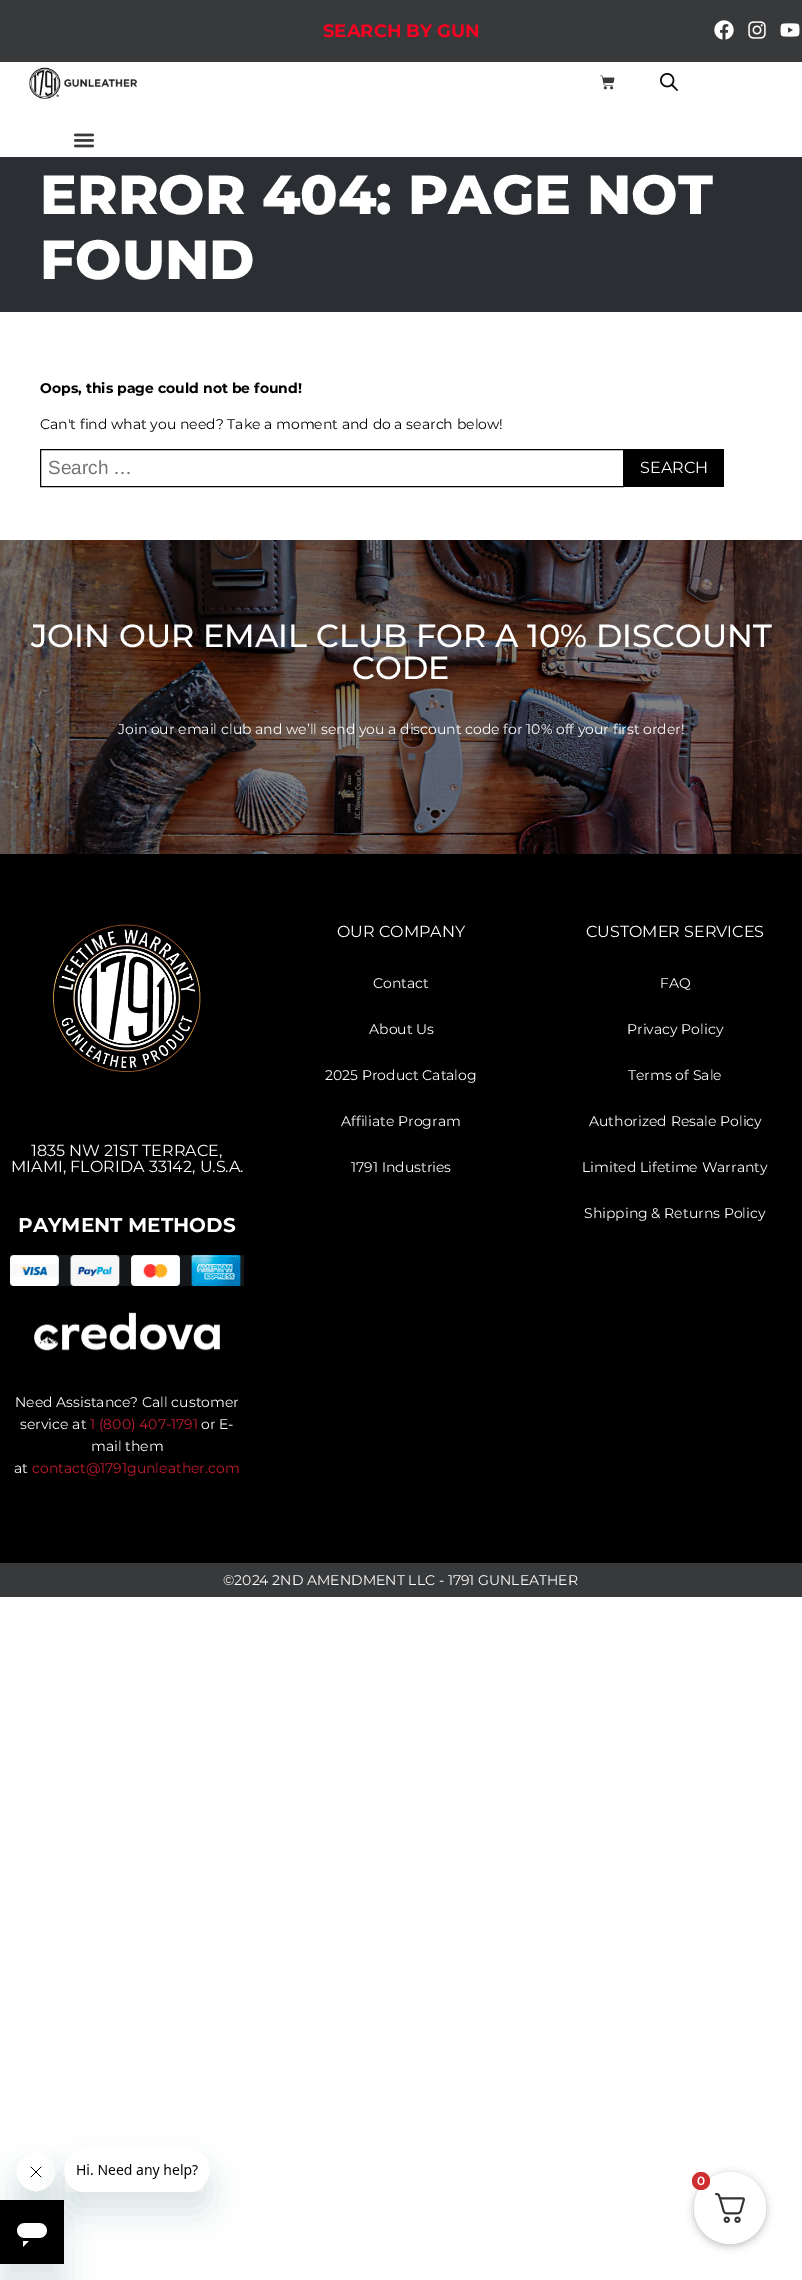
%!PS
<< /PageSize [802 2280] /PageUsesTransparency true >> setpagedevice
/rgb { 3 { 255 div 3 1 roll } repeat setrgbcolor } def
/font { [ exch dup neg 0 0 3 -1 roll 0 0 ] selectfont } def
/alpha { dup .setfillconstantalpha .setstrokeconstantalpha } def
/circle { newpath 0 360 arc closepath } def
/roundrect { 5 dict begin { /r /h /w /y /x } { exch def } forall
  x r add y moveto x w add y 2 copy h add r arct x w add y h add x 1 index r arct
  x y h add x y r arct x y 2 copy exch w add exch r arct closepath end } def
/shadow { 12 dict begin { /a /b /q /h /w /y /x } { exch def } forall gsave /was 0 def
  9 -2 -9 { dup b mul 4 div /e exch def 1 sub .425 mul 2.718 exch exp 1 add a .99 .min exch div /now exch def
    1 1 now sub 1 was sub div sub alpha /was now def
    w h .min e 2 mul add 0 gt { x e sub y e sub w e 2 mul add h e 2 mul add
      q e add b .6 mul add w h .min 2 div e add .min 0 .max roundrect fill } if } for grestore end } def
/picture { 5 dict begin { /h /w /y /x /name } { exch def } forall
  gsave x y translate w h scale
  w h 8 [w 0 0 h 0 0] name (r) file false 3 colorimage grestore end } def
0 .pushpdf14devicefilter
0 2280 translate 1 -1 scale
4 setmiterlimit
255 255 255 rgb
0 0 802 2280 rectfill
56 57 59 rgb
0 0 802 62 rectfill
(img/1.rgb) 714 20 20 20 picture
(img/2.rgb) 748 21 18 18 picture
(img/3.rgb) 780 23 20 14 picture
(img/4.rgb) 24 67 113 32 picture
(img/5.rgb) 600 75 15 15 picture
(img/6.rgb) 660 73 18 18 picture
(img/7.rgb) 73 133 22 15 picture
43 46 50 rgb
0 157 802 155 rectfill
0 0 0 rgb
40.5 449.5 583 37 rectstroke
624 449 100 38 rectfill
(img/8.rgb) 0 540 802 314 picture
0 854 802 709 rectfill
(img/9.rgb) 53 924 148 148 picture
(img/10.rgb) 10 1255 234 31 picture
(img/11.rgb) 34 1312 186 39 picture
56 57 59 rgb
0 1563 802 34 rectfill
gsave
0 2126 moveto 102 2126 lineto 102 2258 lineto 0 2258 lineto closepath 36 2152 moveto 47 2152 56 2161 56 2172 curveto 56 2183 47 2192 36 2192 curveto 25 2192 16 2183 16 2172 curveto 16 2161 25 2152 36 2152 curveto closepath eoclip newpath
23 73 77 rgb
16 2172 40 40 20 15 0.15 shadow
grestore
(img/13.rgb) 30 2166 12 12 picture
gsave
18 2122 moveto 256 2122 lineto 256 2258 lineto 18 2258 lineto closepath 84 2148 moveto 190 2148 lineto 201 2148 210 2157 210 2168 curveto 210 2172 lineto 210 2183 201 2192 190 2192 curveto 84 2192 lineto 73 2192 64 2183 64 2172 curveto 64 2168 lineto 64 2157 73 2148 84 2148 curveto closepath eoclip newpath
23 73 77 rgb
64 2168 146 44 20 15 0.15 shadow
grestore
(img/12.rgb) 65 2164 139 28 picture
23 73 77 rgb
0 2220 64 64 0 15 0.15 shadow
(img/14.rgb) 0 2200 64 64 picture
0 0 0 rgb
694 2174 72 72 36 4 0.25 shadow
255 255 255 rgb
730 2208 36 circle fill
(img/15.rgb) 715 2193 30 30 picture
207 46 46 rgb
701 2181 9 circle fill
/Montserrat-Bold 18 font
247 0 34 rgb
323 37 moveto (SEARCH BY GUN) show
/Montserrat-ExtraBold 55 font
255 255 255 rgb
40 214 moveto (ERROR 404: PAGE NOT) show
40 279 moveto (FOUND) show
/Montserrat-Bold 14 font
0 0 0 rgb
40 393 moveto (Oops, this page could not be found!) show
/Montserrat-Regular 14 font
40 429 moveto (Can't find what you need? Take a moment and do a search below!) show
/LiberationSans-Regular 19 font
117 117 117 rgb
48 474 moveto (Search …) show
/Montserrat-Regular 16 font
255 255 255 rgb
640 473 moveto (SEARCH) show
/Montserrat-Medium 32 font
31 647 moveto (JOIN OUR EMAIL CLUB FOR A 10% DISCOUNT) show
352 679 moveto (CODE) show
/Montserrat-Regular 14 font
118 734 moveto (Join our email club and we’ll send you a discount code for 10% off your first order!) show
/Montserrat-Regular 16 font
337 937 moveto (OUR COMPANY) show
/Montserrat-Regular 14 font
[
  [(Contact) 373 988]
  [(About Us) 369 1034]
  [(2025 Product Catalog) 325 1080]
  [(Affiliate Program) 341 1126]
  [(1791 Industries) 351 1172]
] { aload pop moveto show } forall
/Montserrat-Regular 16 font
586 937 moveto (CUSTOMER SERVICES) show
/Montserrat-Regular 14 font
[
  [(FAQ) 660 988]
  [(Privacy Policy) 627 1034]
  [(Terms of Sale) 628 1080]
  [(Authorized Resale Policy) 589 1126]
  [(Limited Lifetime Warranty) 582 1172]
  [(Shipping & Returns Policy) 584 1218]
] { aload pop moveto show } forall
/Montserrat-Regular 16 font
31 1156 moveto (1835 NW 21ST TERRACE,) show
11 1172 moveto (MIAMI, FLORIDA 33142, U.S.A.) show
/Montserrat-Bold 20 font
18 1232 moveto (PAYMENT METHODS) show
/Montserrat-Regular 14 font
15 1407 moveto (Need Assistance? Call customer) show
20 1429 moveto (service at) show
195 27 46 rgb
90 1429 moveto (1 \(800\) 407-1791) show
255 255 255 rgb
[
  [(or E-) 201 1429]
  [(mail them) 91 1451]
  [(at) 14 1473]
] { aload pop moveto show } forall
195 27 46 rgb
32 1473 moveto (contact@1791gunleather.com) show
255 255 255 rgb
223 1585 moveto (©2024 2ND AMENDMENT LLC - 1791 GUNLEATHER) show
/Montserrat-SemiBold 12 font
697 2185 moveto (0) show
.poppdf14devicefilter showpage
